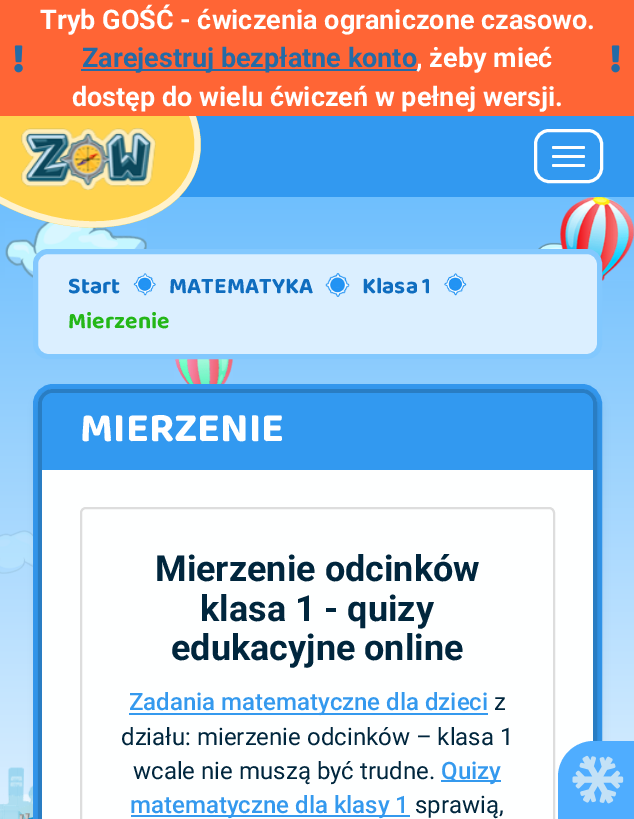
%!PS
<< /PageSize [634 819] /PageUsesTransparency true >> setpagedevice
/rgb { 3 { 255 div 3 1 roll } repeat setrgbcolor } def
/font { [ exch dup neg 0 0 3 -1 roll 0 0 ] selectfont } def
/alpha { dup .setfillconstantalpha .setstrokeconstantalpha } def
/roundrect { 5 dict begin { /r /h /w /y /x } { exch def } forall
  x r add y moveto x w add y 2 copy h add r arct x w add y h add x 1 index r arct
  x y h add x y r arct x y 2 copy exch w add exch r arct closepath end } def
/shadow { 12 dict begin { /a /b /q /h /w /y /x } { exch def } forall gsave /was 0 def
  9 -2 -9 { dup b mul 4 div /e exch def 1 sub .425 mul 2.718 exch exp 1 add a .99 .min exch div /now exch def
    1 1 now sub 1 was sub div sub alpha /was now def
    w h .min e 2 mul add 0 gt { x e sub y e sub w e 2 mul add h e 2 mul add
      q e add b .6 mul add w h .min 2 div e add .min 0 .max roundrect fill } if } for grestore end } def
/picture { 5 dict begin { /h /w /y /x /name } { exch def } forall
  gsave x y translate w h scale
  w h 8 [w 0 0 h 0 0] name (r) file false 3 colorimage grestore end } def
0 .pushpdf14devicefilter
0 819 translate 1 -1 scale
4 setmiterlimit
255 255 255 rgb
0 0 634 819 rectfill
50 153 240 rgb
179 116 455 81 rectfill
gsave 0 197 moveto 634 197 lineto 634 819 lineto 0 819 lineto closepath clip newpath
<< /ShadingType 2 /ColorSpace /DeviceRGB /Coords [317 0 317 819] /Extend [true true] /Function << /FunctionType 2 /Domain [0 1] /C0 [0.302 0.69 0.992] /C1 [0.859 0.937 1] /N 1 >> >> shfill grestore
(img/5.rgb) 5 221 142 57 picture
255 212 80 rgb
96 23 moveto 171 52 216 118 196 171 curveto 176 224 98 243 23 214 curveto -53 185 -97 119 -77 66 curveto -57 14 20 -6 96 23 curveto closepath fill
0.7 alpha
255 255 255 rgb
6 setlinewidth
94.5 26 moveto 168.5 54.5 212.5 119 193 170 curveto 173.5 221 97.5 239.5 24 211 curveto -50 182.5 -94 118.5 -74.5 67.5 curveto -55 16.5 21 -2 94.5 26 curveto closepath stroke
1 alpha
255 101 53 rgb
0 0 634 116 rectfill
(img/1.rgb) 14 45 9 28 picture
36 107 166 rgb
81 69 336 2 rectfill
(img/1.rgb) 611 45 9 28 picture
(img/2.rgb) 21 128 135 63 picture
255 255 255 rgb
3 setlinewidth
535.5 130.5 66 51 13.5 roundrect stroke
552 146 33 3 1.5 roundrect fill
552 155 33 3 1.5 roundrect fill
552 164 33 3 1.5 roundrect fill
(img/6.rgb) 538 242 71 36 picture
(img/3.rgb) 560 197 74 84 picture
(img/4.rgb) 174 359 59 25 picture
(img/7.rgb) 0 530 33 44 picture
(img/8.rgb) 0 767 33 52 picture
219 239 255 rgb
35.5 251.5 564 105 12.5 roundrect gsave fill grestore
130 200 254 rgb
5 setlinewidth
stroke
(img/9.rgb) 133 273 23 23 picture
(img/10.rgb) 325 273 25 24 picture
(img/11.rgb) 444 273 23 23 picture
50 153 240 rgb
35.5 386.5 564 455 17.5 roundrect stroke
0 0 0 rgb
38 393 562 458 17 5 0.1 shadow
41 125 195 rgb
40.5 391.5 554 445 12.5 roundrect stroke
50 153 240 rgb
53 393 moveto 582 393 lineto 588 393 593 398 593 404 curveto 593 470 lineto 42 470 lineto 42 404 lineto 42 398 47 393 53 393 curveto closepath fill
gsave 42 470 moveto 593 470 lineto 593 819 lineto 42 819 lineto closepath clip newpath
<< /ShadingType 2 /ColorSpace /DeviceRGB /Coords [317 470 317 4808] /Extend [true true] /Function << /FunctionType 2 /Domain [0 1] /C0 [1 1 1] /C1 [0.949 0.98 1] /N 1 >> >> shfill grestore
221 221 221 rgb
2 setlinewidth
81 508 473 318 5 roundrect stroke
[
  [129 713 359 2 52 153 238]
  [441 780 60 2 52 153 238]
  [131 815 279 2 52 153 238]
] { aload pop rgb rectfill } forall
79 173 255 rgb
594 741 moveto 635 741 lineto 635 819 lineto 558 819 lineto 558 777 lineto 558 757 574 741 594 741 curveto closepath fill
(img/12.rgb) 572 755 52 49 picture
/Roboto-Bold 27 font
255 255 255 rgb
40 29 moveto (Tryb GOŚĆ - ćwiczenia ograniczone czasowo.) show
36 107 166 rgb
82 67 moveto (Zarejestruj bezpłatne konto) show
255 255 255 rgb
416 67 moveto (, żeby mieć) show
72 106 moveto (dostęp do wielu ćwiczeń w pełnej wersji.) show
/Baloo2-Bold 23 font
15 109 191 rgb
[
  [(Start) 68 293]
  [(MATEMATYKA) 169 293]
  [(Klasa 1) 362 293]
] { aload pop moveto show } forall
36 183 24 rgb
68 328 moveto (Mierzenie) show
/Baloo2-Bold 42 font
255 255 255 rgb
80 441 moveto (MIERZENIE) show
/Roboto-Bold 36 font
0 38 61 rgb
[
  [(Mierzenie odcinków) 155 581]
  [(klasa 1 - quizy) 200 621]
  [(edukacyjne online) 171 660]
] { aload pop moveto show } forall
/Roboto-Medium 24 font
52 153 238 rgb
129 710 moveto (Zadania matematyczne dla dzieci) show
/Roboto-Regular 24 font
0 38 61 rgb
[
  [(z) 494 710]
  [(działu: mierzenie odcinków – klasa 1) 121 745]
  [(wcale nie muszą być trudne.) 133 779]
] { aload pop moveto show } forall
/Roboto-Medium 24 font
52 153 238 rgb
441 779 moveto (Quizy) show
130 813 moveto (matematyczne dla klasy 1) show
/Roboto-Regular 24 font
0 38 61 rgb
415 813 moveto (sprawią,) show
.poppdf14devicefilter showpage
